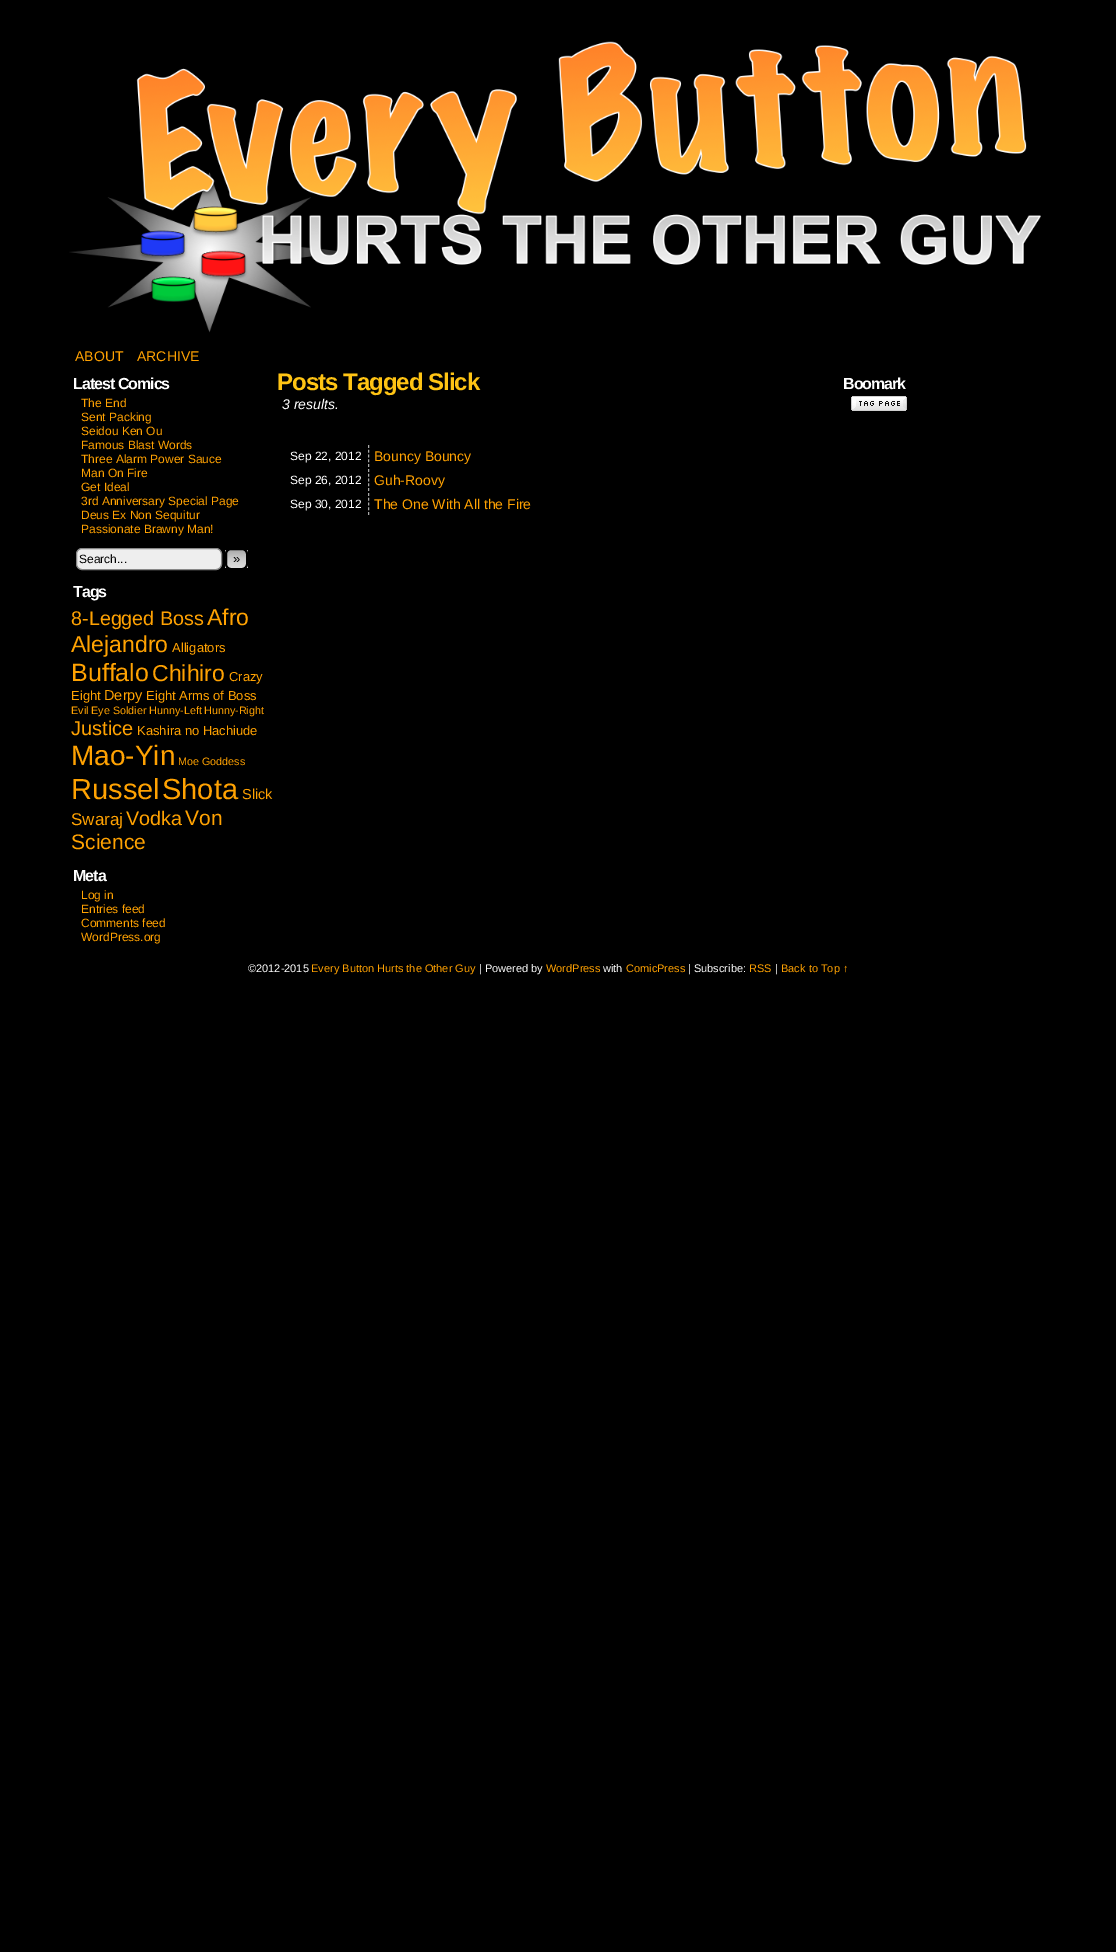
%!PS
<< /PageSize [1116 1952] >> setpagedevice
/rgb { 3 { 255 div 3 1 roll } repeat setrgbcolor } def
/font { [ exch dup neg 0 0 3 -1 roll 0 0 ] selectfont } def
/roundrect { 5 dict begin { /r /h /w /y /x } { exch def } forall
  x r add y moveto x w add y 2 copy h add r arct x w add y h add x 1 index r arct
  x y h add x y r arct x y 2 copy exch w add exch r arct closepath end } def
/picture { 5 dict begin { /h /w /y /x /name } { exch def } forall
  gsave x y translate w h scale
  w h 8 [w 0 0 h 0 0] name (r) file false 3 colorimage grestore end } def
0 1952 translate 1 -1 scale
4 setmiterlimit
0 0 0 rgb
0 0 1116 1952 rectfill
(img/1.rgb) 69 41 972 292 picture
238 238 238 rgb
76.5 548.5 145 21 5.5 roundrect gsave fill grestore
136 136 136 rgb
stroke
gsave
225 548 23 22 6 roundrect clip newpath
gsave 225 550 moveto 248 550 lineto 248 568 lineto 225 568 lineto closepath clip newpath
<< /ShadingType 2 /ColorSpace /DeviceRGB /Coords [237 550 237 568] /Extend [true true] /Function << /FunctionType 3 /Domain [0 1] /Functions [<< /FunctionType 2 /Domain [0 1] /C0 [0.667 0.667 0.667] /C1 [0.8 0.8 0.8] /N 1 >> << /FunctionType 2 /Domain [0 1] /C0 [0.8 0.8 0.8] /C1 [0.867 0.867 0.867] /N 1 >>] /Bounds [0.5] /Encode [0 1 0 1] >> >> shfill grestore
grestore
0 0 0 rgb
2 setlinewidth
226 549 21 20 5 roundrect stroke
170 170 170 rgb
1 setlinewidth
[3 1.75] 0 setdash
368.5 445 moveto 368.5 467 lineto 368.5 469 moveto 368.5 491 lineto stroke
368.5 493 moveto 368.5 515 lineto stroke
(img/2.rgb) 851 396 56 15 picture
/LiberationSans-Regular 14 font
255 162 2 rgb
75 361 moveto (ABOUT) show
137 361 moveto (ARCHIVE) show
/LiberationSans-Bold 16 font
255 255 255 rgb
73 389 moveto -1 0 (Latest Comics) ashow
/LiberationSans-Regular 12 font
255 162 2 rgb
[
  [(The End) 81 407]
  [(Sent Packing) 81 421]
  [(Seidou Ken Ou) 81 435]
  [(Famous Blast Words) 81 449]
  [(Three Alarm Power Sauce) 81 463]
  [(Man On Fire) 81 477]
  [(Get Ideal) 81 491]
  [(3rd Anniversary Special Page) 81 505]
  [(Deus Ex Non Sequitur) 81 519]
  [(Passionate Brawny Man!) 81 533]
] { aload pop moveto show } forall
0 0 0 rgb
79 563 moveto (Search...) show
/LiberationSans-Regular 13 font
233 563 moveto (») show
/LiberationSans-Bold 16 font
255 255 255 rgb
73 597 moveto -1 0 (Tags) ashow
/LiberationSans-Regular 19.75 font
255 162 2 rgb
71 625 moveto (8-Legged Boss) show
/LiberationSans-Regular 23 font
207 625 moveto (Afro) show
71 652 moveto (Alejandro) show
/LiberationSans-Regular 13 font
172 652 moveto (Alligators) show
/LiberationSans-Regular 25 font
71 681 moveto (Buffalo) show
/LiberationSans-Regular 23 font
152 681 moveto (Chihiro) show
/LiberationSans-Regular 13 font
229 681 moveto (Crazy) show
71 700 moveto (Eight) show
/LiberationSans-Regular 14.5 font
104 700 moveto (Derpy) show
/LiberationSans-Regular 13 font
146 700 moveto (Eight Arms of Boss) show
/LiberationSans-Regular 10.75 font
[
  [(Evil Eye Soldier) 71 714]
  [(Hunny-Left) 149 714]
  [(Hunny-Right) 204 714]
] { aload pop moveto show } forall
/LiberationSans-Regular 20 font
71 735 moveto (Justice) show
/LiberationSans-Regular 13 font
137 735 moveto (Kashira no Hachiude) show
/LiberationSans-Regular 28 font
71 765 moveto (Mao-Yin) show
/LiberationSans-Regular 10.75 font
178 765 moveto (Moe Goddess) show
/LiberationSans-Regular 29 font
71 799 moveto (Russel) show
162 799 moveto (Shota) show
/LiberationSans-Regular 14.5 font
242 799 moveto (Slick) show
/LiberationSans-Regular 17 font
71 825 moveto (Swaraj) show
/LiberationSans-Regular 19.75 font
126 825 moveto (Vodka) show
/LiberationSans-Regular 21 font
185 825 moveto (Von) show
71 849 moveto (Science) show
/LiberationSans-Bold 16 font
255 255 255 rgb
73 881 moveto -1 0 (Meta) ashow
/LiberationSans-Regular 12 font
255 162 2 rgb
[
  [(Log in) 81 899]
  [(Entries feed) 81 913]
  [(Comments feed) 81 927]
  [(WordPress.org) 81 941]
] { aload pop moveto show } forall
/LiberationSans-Bold 24 font
255 196 20 rgb
277 390 moveto -1 0 (Posts Tagged Slick) ashow
/LiberationSans-Italic 14 font
255 255 255 rgb
282 409 moveto (3 results.) show
/LiberationSans-Regular 12 font
290 460 moveto (Sep 22, 2012) show
/LiberationSans-Regular 14 font
255 162 2 rgb
374 461 moveto (Bouncy Bouncy) show
/LiberationSans-Regular 12 font
255 255 255 rgb
290 484 moveto (Sep 26, 2012) show
/LiberationSans-Regular 14 font
255 162 2 rgb
374 485 moveto (Guh-Roovy) show
/LiberationSans-Regular 12 font
255 255 255 rgb
290 508 moveto (Sep 30, 2012) show
/LiberationSans-Regular 14 font
255 162 2 rgb
374 509 moveto (The One With All the Fire) show
/LiberationSans-Bold 16 font
255 255 255 rgb
843 389 moveto -1 0 (Boomark) ashow
/LiberationSans-Regular 11 font
248 972 moveto (©2012-2015) show
255 162 2 rgb
311 972 moveto (Every Button Hurts the Other Guy) show
255 255 255 rgb
479 972 moveto (| Powered by) show
255 162 2 rgb
546 972 moveto (WordPress) show
255 255 255 rgb
603 972 moveto (with) show
255 162 2 rgb
626 972 moveto (ComicPress) show
255 255 255 rgb
688 972 moveto (| Subscribe:) show
255 162 2 rgb
749 972 moveto (RSS) show
255 255 255 rgb
775 972 moveto (|) show
255 162 2 rgb
781 972 moveto (Back to Top ↑) show
showpage
